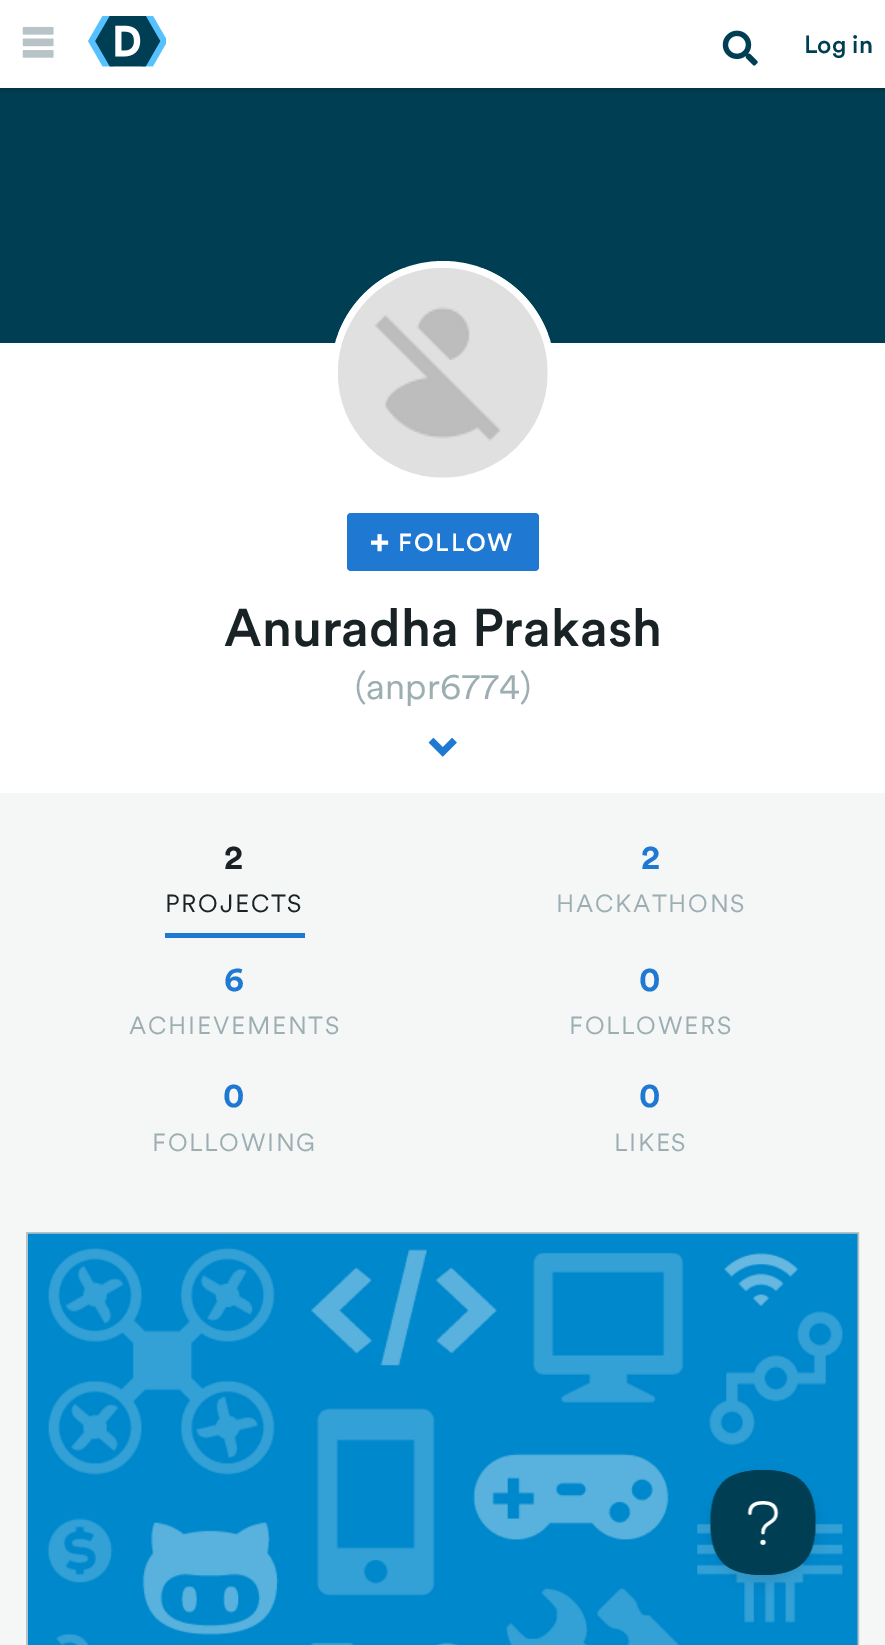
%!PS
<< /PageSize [885 1645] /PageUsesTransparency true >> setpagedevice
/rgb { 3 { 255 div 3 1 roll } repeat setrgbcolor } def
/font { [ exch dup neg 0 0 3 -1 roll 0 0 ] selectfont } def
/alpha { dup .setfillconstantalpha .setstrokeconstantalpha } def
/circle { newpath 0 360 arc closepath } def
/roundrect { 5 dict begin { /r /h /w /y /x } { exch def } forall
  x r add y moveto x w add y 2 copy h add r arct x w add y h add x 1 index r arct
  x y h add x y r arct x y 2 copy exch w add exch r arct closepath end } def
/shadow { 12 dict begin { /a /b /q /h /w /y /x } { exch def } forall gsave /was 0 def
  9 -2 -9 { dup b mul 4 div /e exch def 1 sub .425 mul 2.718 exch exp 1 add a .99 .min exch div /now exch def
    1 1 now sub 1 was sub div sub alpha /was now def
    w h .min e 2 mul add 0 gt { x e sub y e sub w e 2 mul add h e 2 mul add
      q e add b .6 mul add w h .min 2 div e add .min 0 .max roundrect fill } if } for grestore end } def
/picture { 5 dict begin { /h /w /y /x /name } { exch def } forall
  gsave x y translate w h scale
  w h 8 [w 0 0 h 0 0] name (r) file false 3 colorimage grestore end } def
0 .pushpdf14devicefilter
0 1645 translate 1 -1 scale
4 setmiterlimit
255 255 255 rgb
0 0 885 1645 rectfill
0 62 84 rgb
0 88 885 255 rectfill
0 0 0 rgb
0 2 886 87 0 2.5 0.3 shadow
255 255 255 rgb
0 0 885 88 rectfill
(img/1.rgb) 22 26 32 32 picture
(img/2.rgb) 88 16 78 51 picture
(img/3.rgb) 722 30 36 36 picture
443 373 108.5 circle gsave fill grestore
7 setlinewidth
stroke
(img/4.rgb) 338 268 210 210 picture
31 120 209 rgb
347 513 192 58 4 roundrect fill
(img/5.rgb) 371 534 18 18 picture
(img/6.rgb) 428 737 29 20 picture
245 247 247 rgb
0 793 885 852 rectfill
31 120 209 rgb
165 933 140 5 rectfill
183 195 199 rgb
2 setlinewidth
27 1233 831 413 rectstroke
(img/7.rgb) 28 1233 830 412 picture
0 0 0 rgb
711 1477 105 105 52.5 6 0.1 shadow
(img/8.rgb) 710 1470 106 105 picture
/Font-Medium 24.5 font
0 62 84 rgb
804 53 moveto (Log in) show
255 255 255 rgb
398 551 moveto 1.75 0 (FOLLOW) ashow
/Font-Medium 52.5 font
25 35 37 rgb
224 646 moveto (Anuradha Prakash) show
/Font-Regular 36.75 font
156 174 178 rgb
355 699 moveto (\(anpr6774\)) show
/Font-Bold 34 font
25 35 37 rgb
224 869 moveto 1.75 0 (2) ashow
/Font-Regular 24.5 font
165 912 moveto 1.75 0 (PROJECTS) ashow
/Font-Bold 34 font
31 120 209 rgb
641 869 moveto 1.75 0 (2) ashow
/Font-Regular 24.5 font
156 174 178 rgb
556 912 moveto 1.75 0 (HACKATHONS) ashow
/Font-Bold 34 font
31 120 209 rgb
224 991 moveto 1.75 0 (6) ashow
/Font-Regular 24.5 font
156 174 178 rgb
129 1034 moveto 1.75 0 (ACHIEVEMENTS) ashow
/Font-Bold 34 font
31 120 209 rgb
639 991 moveto 1.75 0 (0) ashow
/Font-Regular 24.5 font
156 174 178 rgb
569 1034 moveto 1.75 0 (FOLLOWERS) ashow
/Font-Bold 34 font
31 120 209 rgb
223 1107 moveto 1.75 0 (0) ashow
/Font-Regular 24.5 font
156 174 178 rgb
152 1151 moveto 1.75 0 (FOLLOWING) ashow
/Font-Bold 34 font
31 120 209 rgb
639 1107 moveto 1.75 0 (0) ashow
/Font-Regular 24.5 font
156 174 178 rgb
614 1151 moveto 1.75 0 (LIKES) ashow
.poppdf14devicefilter showpage
